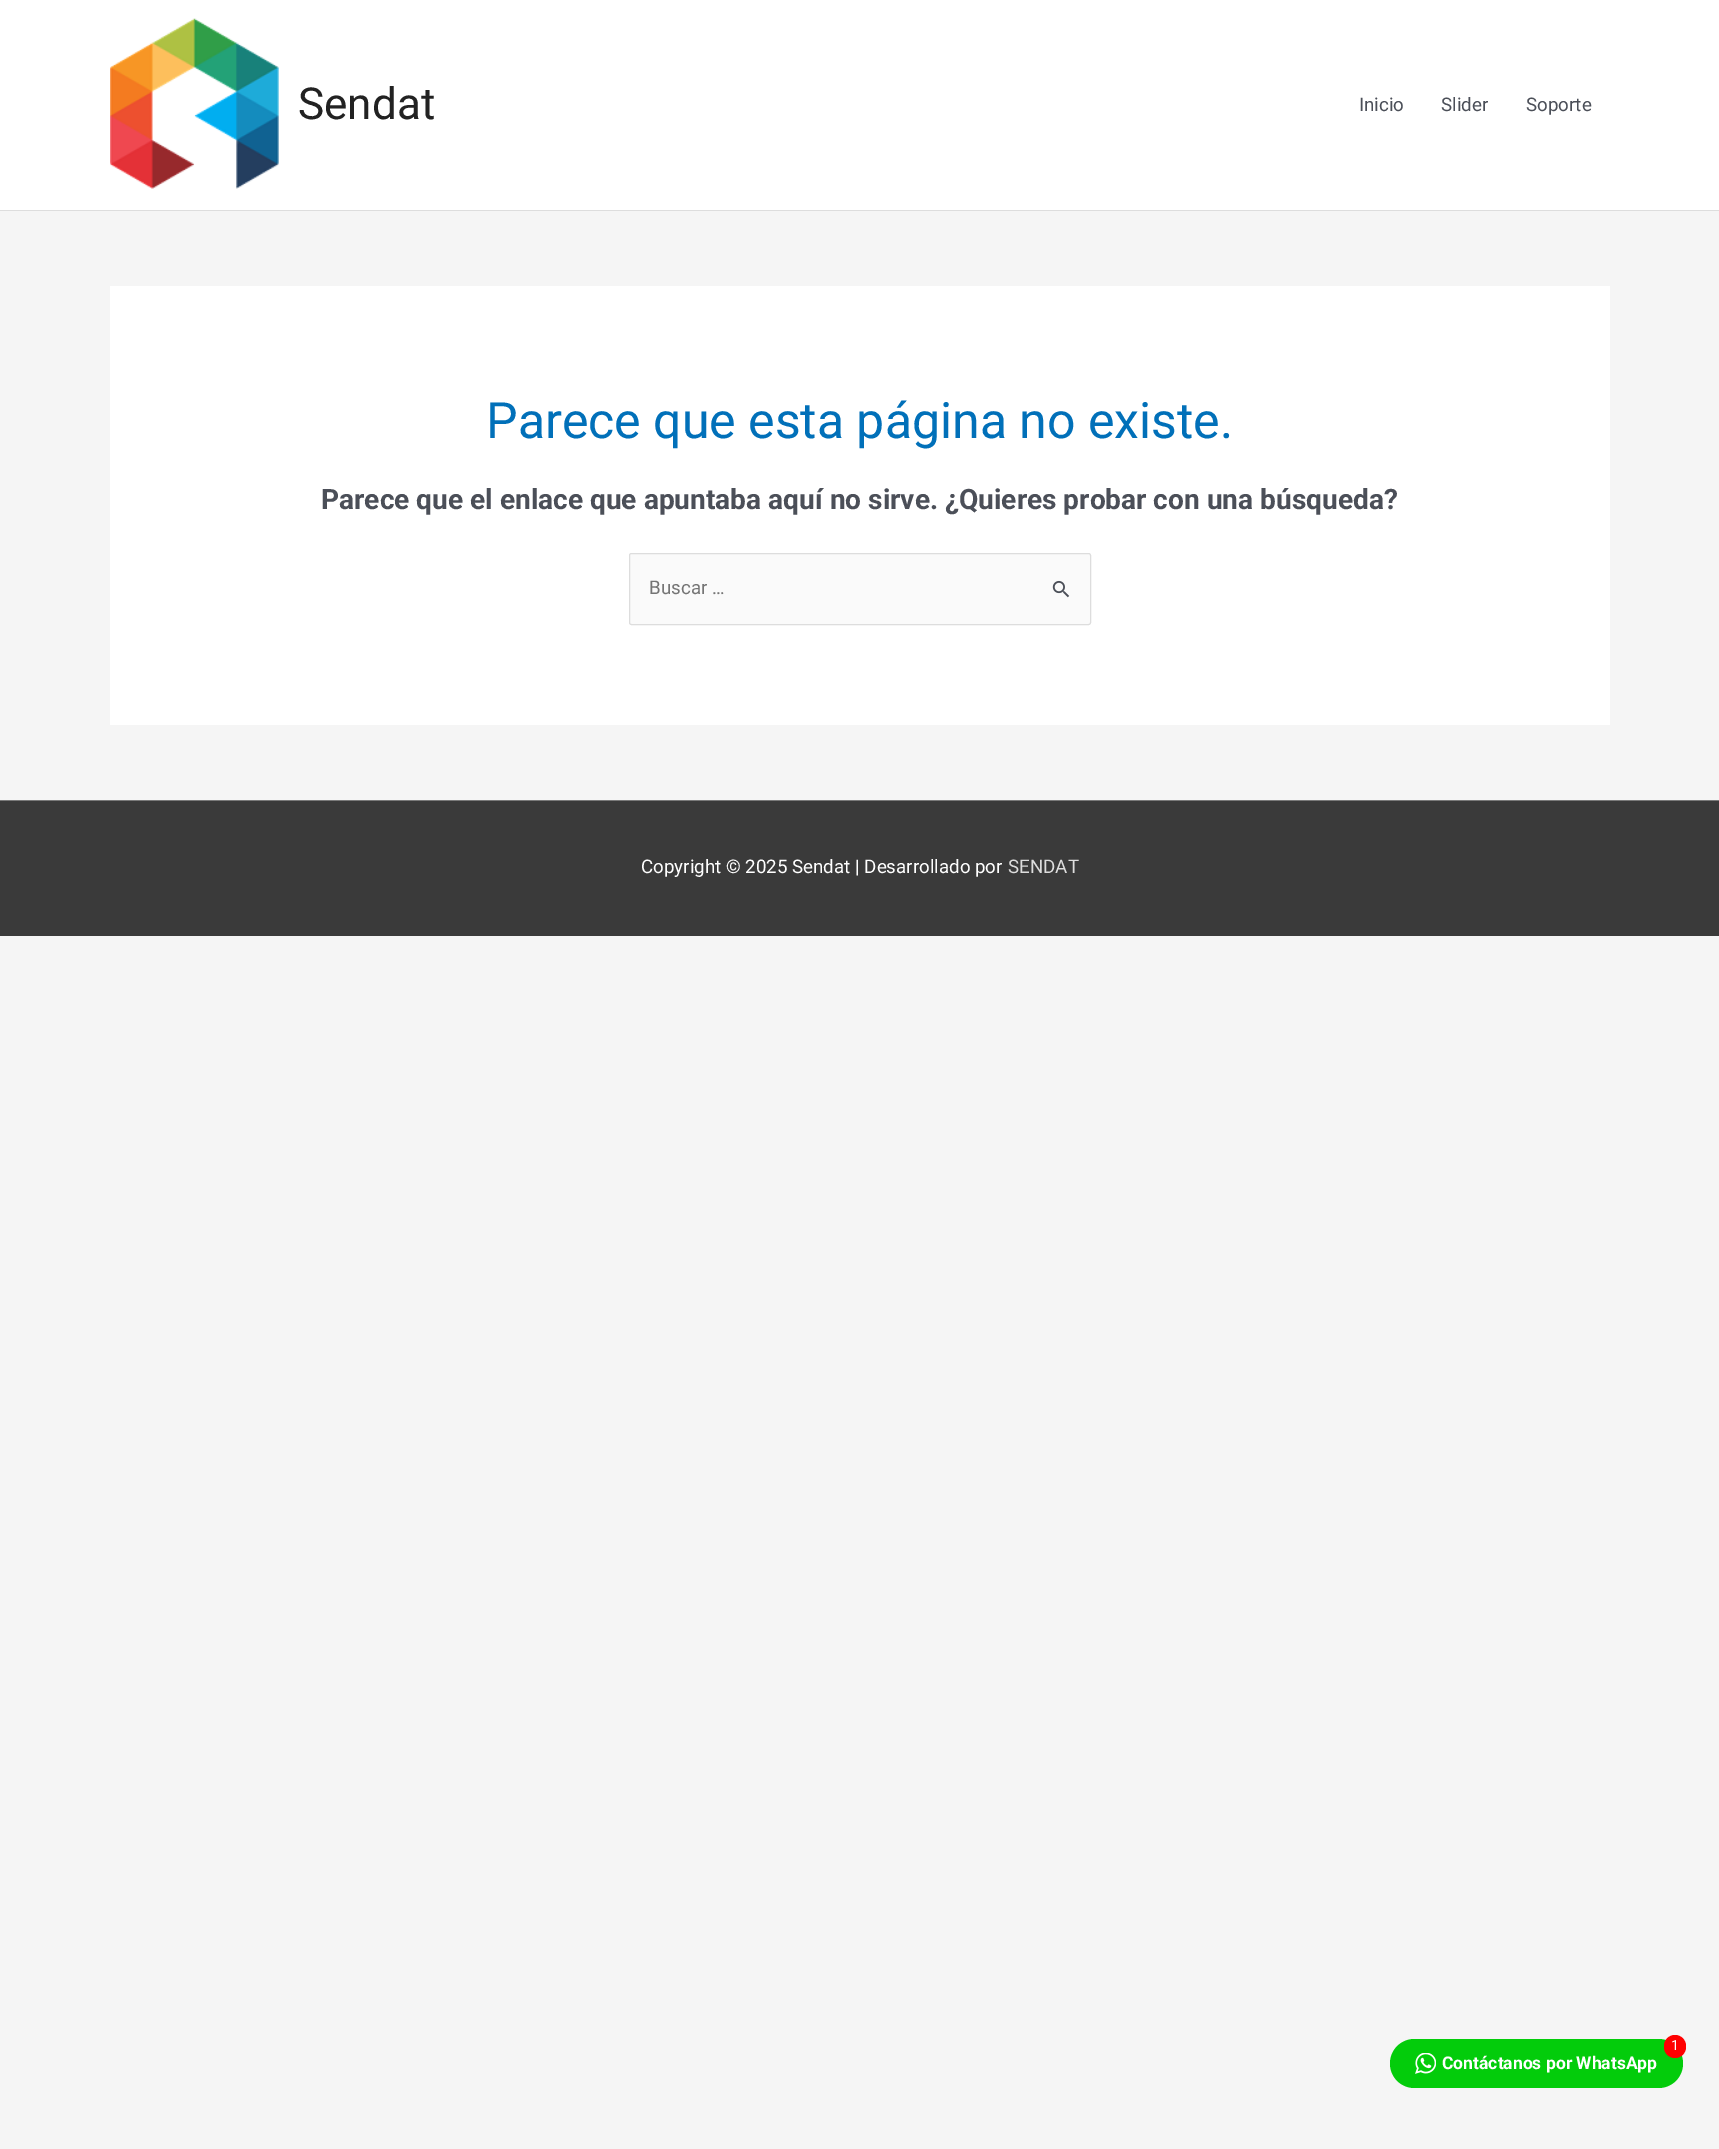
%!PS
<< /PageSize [1719 2149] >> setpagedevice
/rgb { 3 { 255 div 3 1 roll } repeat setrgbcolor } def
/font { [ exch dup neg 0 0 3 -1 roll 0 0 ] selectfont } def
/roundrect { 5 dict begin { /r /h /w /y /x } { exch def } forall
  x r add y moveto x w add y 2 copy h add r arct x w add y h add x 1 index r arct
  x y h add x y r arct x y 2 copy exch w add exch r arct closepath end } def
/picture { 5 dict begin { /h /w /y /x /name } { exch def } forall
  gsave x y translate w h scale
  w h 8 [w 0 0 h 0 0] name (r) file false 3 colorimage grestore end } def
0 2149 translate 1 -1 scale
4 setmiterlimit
245 245 245 rgb
0 0 1719 2149 rectfill
255 255 255 rgb
0 0 1719 210 rectfill
221 221 221 rgb
0 210 1719 1 rectfill
(img/1.rgb) 110 18 169 171 picture
255 255 255 rgb
110 286 1500 439 rectfill
250 250 250 rgb
629.5 553.5 461 71 2 roundrect gsave fill grestore
221 221 221 rgb
stroke
(img/2.rgb) 1052 580 18 18 picture
122 122 122 rgb
0 800 1719 1 rectfill
58 58 58 rgb
0 801 1719 135 rectfill
3 204 11 rgb
1390 2039 293 49 24.5 roundrect fill
255 0 0 rgb
1664 2035 22 23 11 roundrect fill
(img/3.rgb) 1415 2053 21 21 picture
/Roboto-Regular 44 font
34 34 34 rgb
298 119 moveto (Sendat) show
/Roboto-Regular 18.75 font
75 79 88 rgb
[
  [(Inicio) 1359 111]
  [(Slider) 1441 111]
  [(Soporte) 1526 111]
] { aload pop moveto show } forall
/Roboto-Regular 50 font
1 112 185 rgb
486 438 moveto (Parece que esta página no existe.) show
/Roboto-Bold 28.1 font
75 79 88 rgb
321 509 moveto (Parece que el enlace que apuntaba aquí no sirve. ¿Quieres probar con una búsqueda?) show
/Roboto-Regular 18.75 font
117 117 117 rgb
649 594 moveto (Buscar …) show
255 255 255 rgb
641 873 moveto (Copyright © 2025 Sendat | Desarrollado por) show
221 221 221 rgb
1008 873 moveto (SENDAT) show
/Roboto-Regular 14 font
255 255 255 rgb
1671 2050 moveto (1) show
/Roboto-Bold 17.5 font
1442 2069 moveto (Contáctanos por WhatsApp) show
showpage
